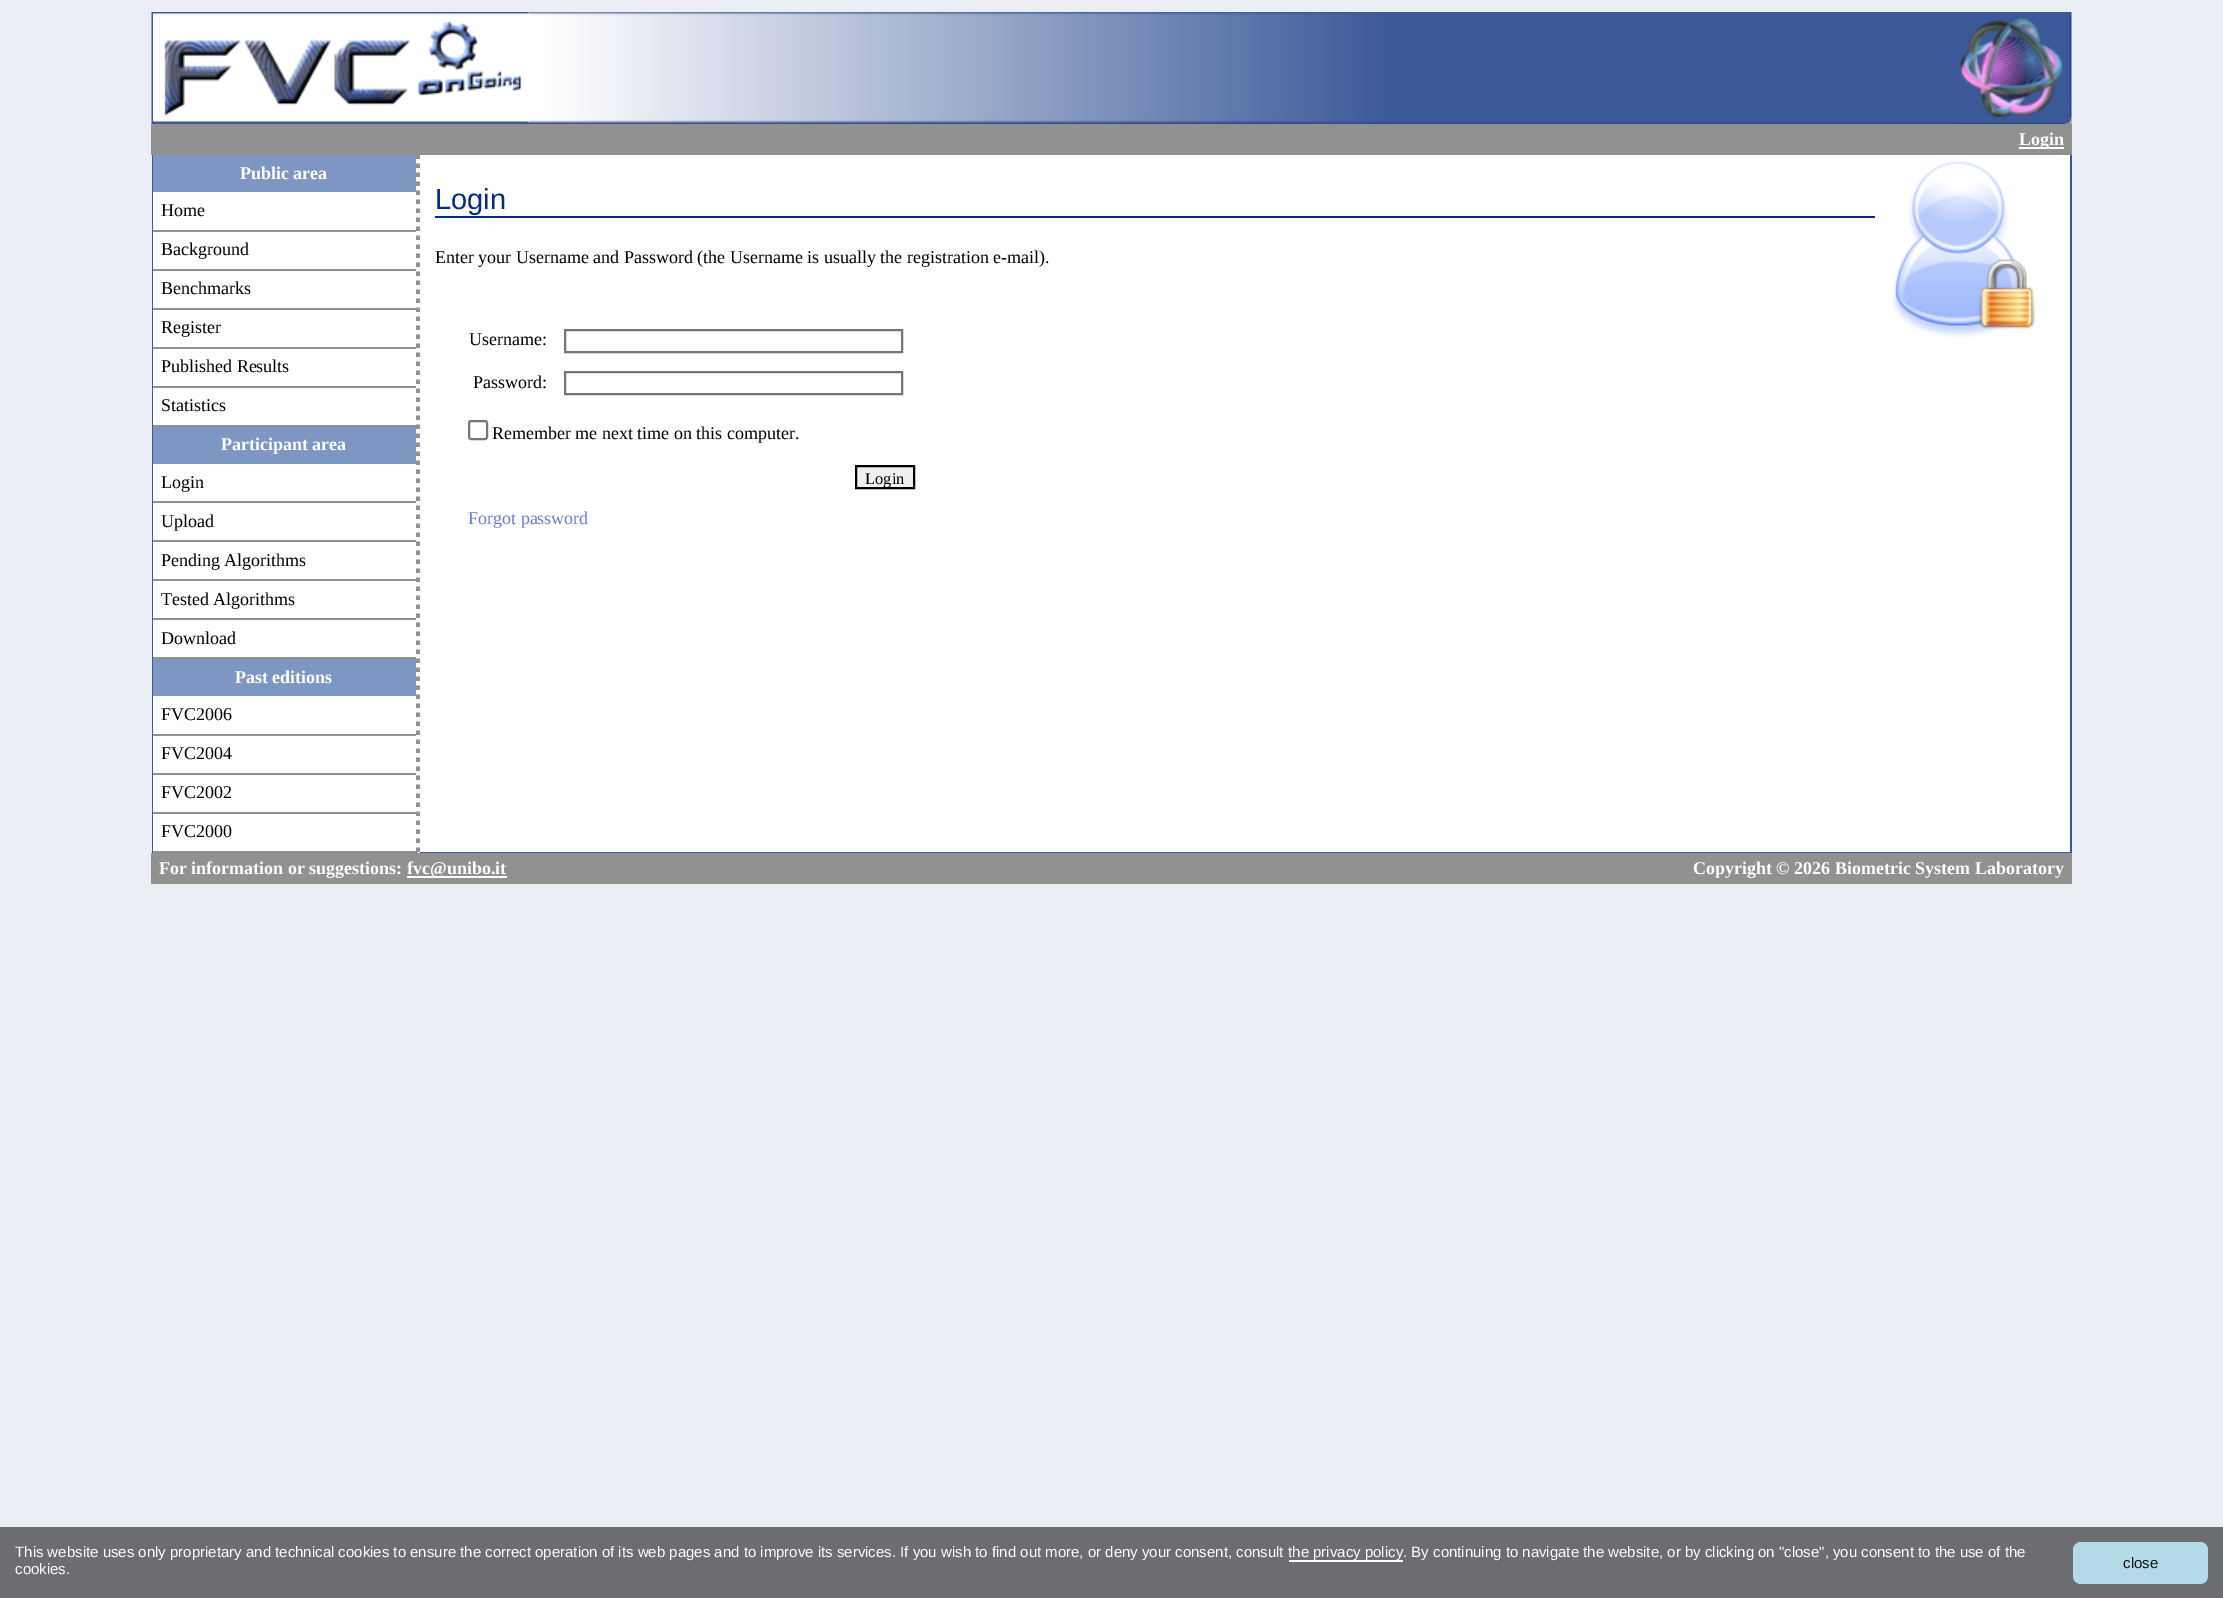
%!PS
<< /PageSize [2223 1598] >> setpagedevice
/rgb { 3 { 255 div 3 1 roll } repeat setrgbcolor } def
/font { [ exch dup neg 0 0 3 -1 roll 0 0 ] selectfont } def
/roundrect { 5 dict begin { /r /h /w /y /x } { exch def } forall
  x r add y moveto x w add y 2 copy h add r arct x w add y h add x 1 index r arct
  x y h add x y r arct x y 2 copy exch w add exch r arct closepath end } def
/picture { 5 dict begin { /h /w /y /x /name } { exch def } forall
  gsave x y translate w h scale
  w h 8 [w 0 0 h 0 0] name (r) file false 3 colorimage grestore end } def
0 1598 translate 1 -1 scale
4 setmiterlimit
235 238 245 rgb
0 0 2223 1598 rectfill
(img/1.rgb) 151 12 1921 112 picture
(img/2.rgb) 153 13 377 109 picture
[
  [151 124 1921 31 145 145 145]
  [2019 147 45 2 255 255 255]
  [416 159 4 694 255 255 255]
] { aload pop rgb rectfill } forall
145 145 145 rgb
4.5 setlinewidth
[4.5 4.5] 0 setdash
418 154.5 moveto 418 853.5 lineto stroke
59 89 152 rgb
420 854 moveto 152 854 lineto 153 852 lineto 416 852 lineto closepath fill
[
  [152 155 1 699 59 89 152]
  [153 192 263 659 255 255 255]
  [153 155 263 37 126 151 194]
  [153 230 263 2 145 145 145]
  [153 269 263 2 145 145 145]
  [153 308 263 2 145 145 145]
  [153 347 263 2 145 145 145]
  [153 386 263 2 145 145 145]
  [153 425 263 2 145 145 145]
  [153 427 263 37 126 151 194]
  [153 501 263 2 145 145 145]
  [153 540 263 2 145 145 145]
  [153 579 263 2 145 145 145]
  [153 618 263 2 145 145 145]
  [153 657 263 2 145 145 145]
  [153 659 263 37 126 151 194]
  [153 734 263 2 145 145 145]
  [153 773 263 2 145 145 145]
  [153 812 263 2 145 145 145]
  [153 851 263 2 145 145 145]
  [420 155 1650 697 255 255 255]
  [2070 155 2 699 59 89 152]
  [420 852 1652 1 59 89 152]
] { aload pop rgb rectfill } forall
(img/3.rgb) 1892 161 144 177 picture
2 44 144 rgb
435 216 1440 2 rectfill
118 118 118 rgb
2 setlinewidth
[] 0 setdash
565 330 337 22 rectstroke
565 372 337 22 rectstroke
469 421 18 18 2 roundrect stroke
239 239 239 rgb
856 466 moveto 914 466 lineto 914 488 lineto 856 488 lineto closepath gsave fill grestore
0 0 0 rgb
stroke
[
  [151 853 1921 31 145 145 145]
  [407 876 100 2 255 255 255]
  [0 1527 2223 71 108 109 112]
  [1289 1560 114 2 253 254 254]
] { aload pop rgb rectfill } forall
178 218 231 rgb
2073 1542 135 42 8 roundrect fill
/LiberationSerif-Bold 18 font
255 255 255 rgb
2019 145 moveto (Login) show
240 179 moveto (Public area) show
/LiberationSerif-Regular 18 font
0 0 0 rgb
[
  [(Home) 161 216]
  [(Background) 161 255]
  [(Benchmarks) 161 294]
  [(Register) 161 333]
  [(Published Results) 161 372]
  [(Statistics) 161 411]
] { aload pop moveto show } forall
/LiberationSerif-Bold 18 font
255 255 255 rgb
221 450 moveto (Participant area) show
/LiberationSerif-Regular 18 font
0 0 0 rgb
[
  [(Login) 161 488]
  [(Upload) 161 527]
  [(Pending Algorithms) 161 566]
  [(Tested Algorithms) 161 605]
  [(Download) 161 644]
] { aload pop moveto show } forall
/LiberationSerif-Bold 18 font
255 255 255 rgb
235 683 moveto (Past editions) show
/LiberationSerif-Regular 18 font
0 0 0 rgb
[
  [(FVC2006) 161 720]
  [(FVC2004) 161 759]
  [(FVC2002) 161 798]
  [(FVC2000) 161 837]
] { aload pop moveto show } forall
/LiberationSans-Regular 29 font
2 44 144 rgb
435 209 moveto (Login) show
/LiberationSerif-Regular 18 font
0 0 0 rgb
[
  [(Enter your Username and Password \(the Username is usually the registration e-mail\).) 435 263]
  [(Username:) 469 345]
  [(Password:) 473 388]
  [(Remember me next time on this computer.) 492 439]
] { aload pop moveto show } forall
/LiberationSerif-Regular 16.5 font
865 484 moveto (Login) show
/LiberationSerif-Regular 18 font
110 120 225 rgb
468 524 moveto (Forgot password) show
/LiberationSerif-Bold 18 font
255 255 255 rgb
[
  [(For information or suggestions:) 159 874]
  [(fvc@unibo.it) 407 874]
  [(Copyright © 2026 Biometric System Laboratory) 1693 874]
] { aload pop moveto show } forall
/LiberationSans-Regular 15 font
[
  [(This website uses only proprietary and technical cookies to ensure the correct operation of its web pages and to improve its services. If you wish to find out more, or deny your consent, consult) 15 1557]
  [(the privacy policy. By continuing to navigate the website, or by clicking on "close", you consent to the use of the) 1288 1557]
  [(cookies.) 15 1574]
] { aload pop moveto show } forall
19 19 20 rgb
2123 1568 moveto (close) show
showpage
